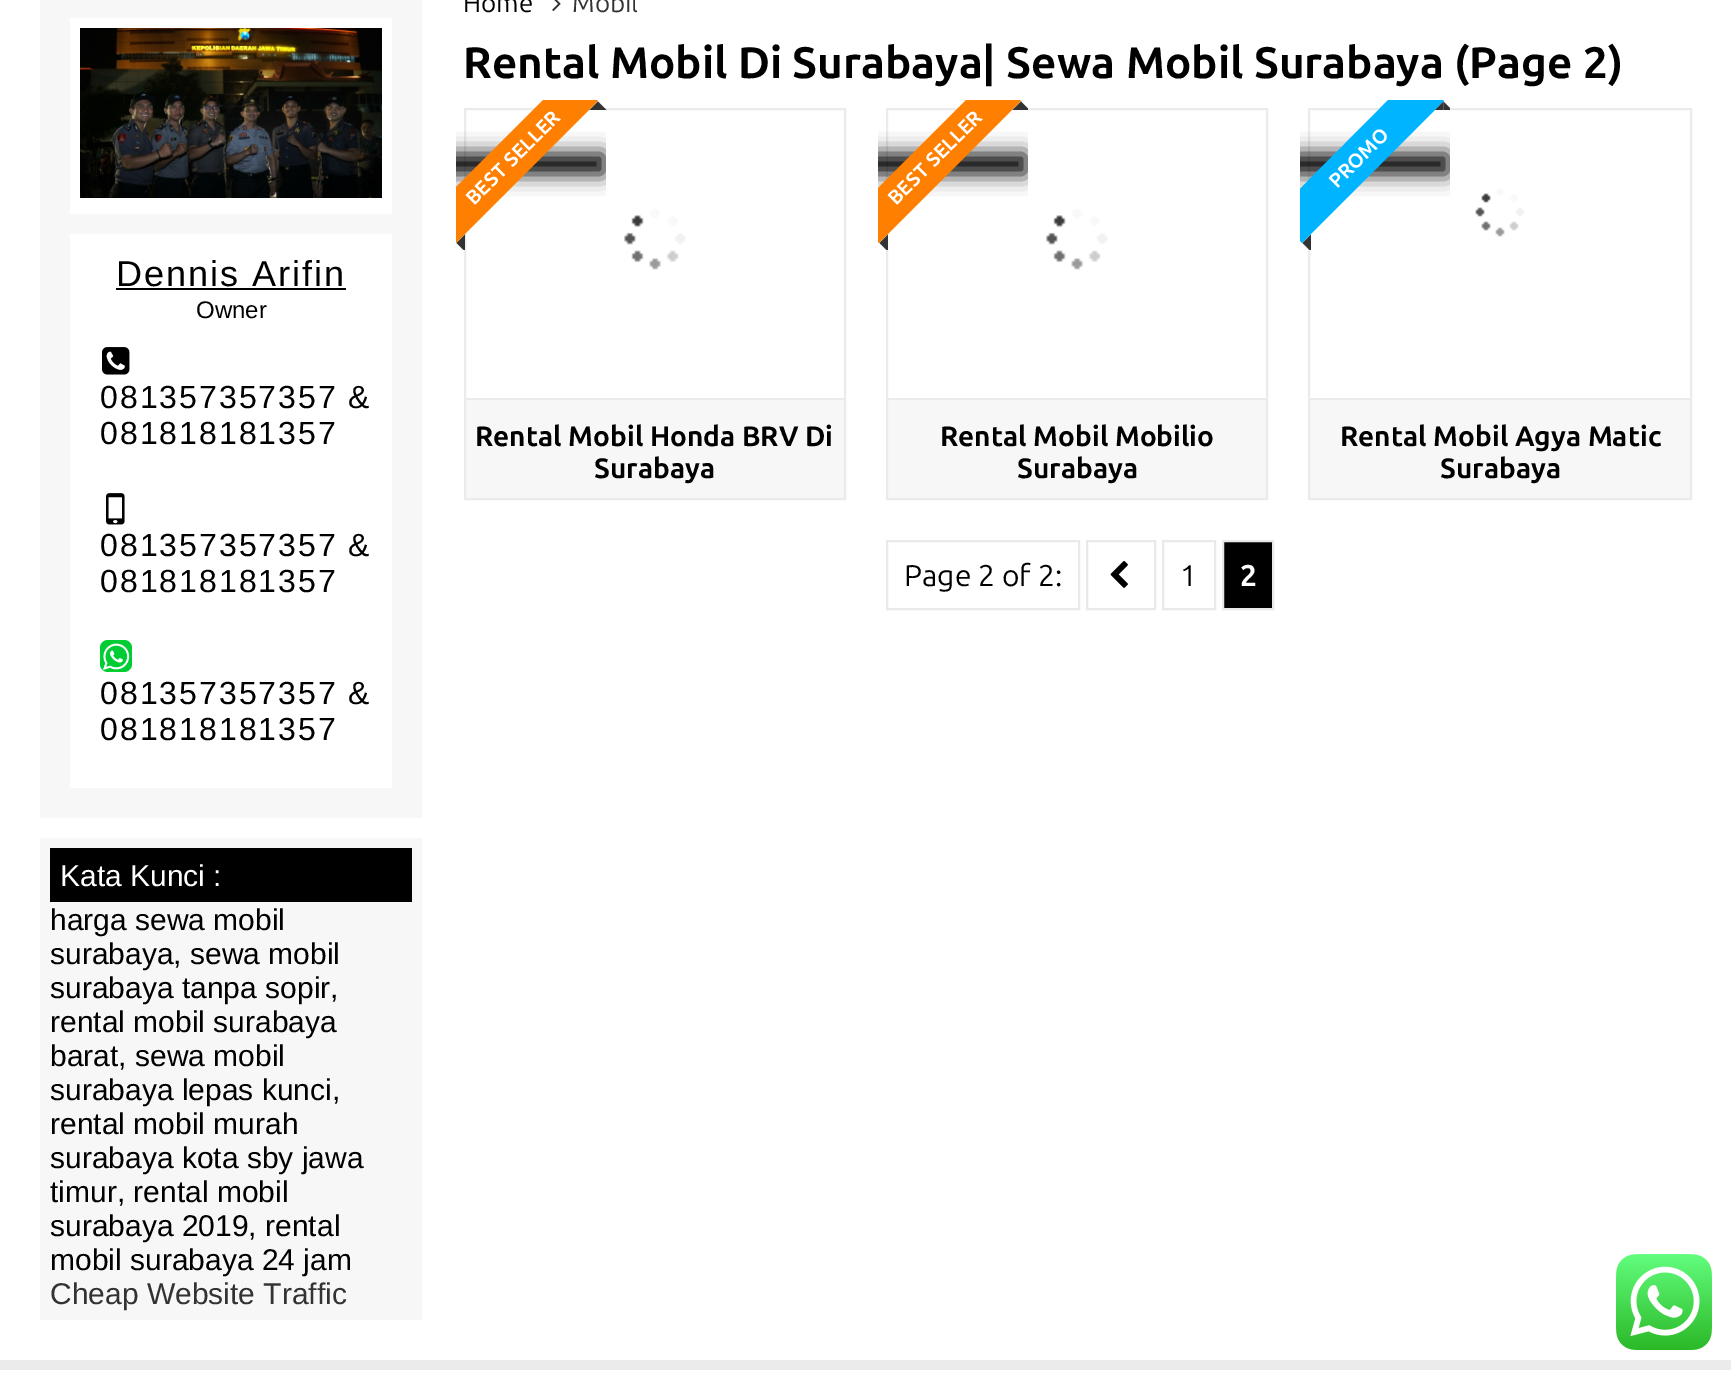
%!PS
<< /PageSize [1731 1374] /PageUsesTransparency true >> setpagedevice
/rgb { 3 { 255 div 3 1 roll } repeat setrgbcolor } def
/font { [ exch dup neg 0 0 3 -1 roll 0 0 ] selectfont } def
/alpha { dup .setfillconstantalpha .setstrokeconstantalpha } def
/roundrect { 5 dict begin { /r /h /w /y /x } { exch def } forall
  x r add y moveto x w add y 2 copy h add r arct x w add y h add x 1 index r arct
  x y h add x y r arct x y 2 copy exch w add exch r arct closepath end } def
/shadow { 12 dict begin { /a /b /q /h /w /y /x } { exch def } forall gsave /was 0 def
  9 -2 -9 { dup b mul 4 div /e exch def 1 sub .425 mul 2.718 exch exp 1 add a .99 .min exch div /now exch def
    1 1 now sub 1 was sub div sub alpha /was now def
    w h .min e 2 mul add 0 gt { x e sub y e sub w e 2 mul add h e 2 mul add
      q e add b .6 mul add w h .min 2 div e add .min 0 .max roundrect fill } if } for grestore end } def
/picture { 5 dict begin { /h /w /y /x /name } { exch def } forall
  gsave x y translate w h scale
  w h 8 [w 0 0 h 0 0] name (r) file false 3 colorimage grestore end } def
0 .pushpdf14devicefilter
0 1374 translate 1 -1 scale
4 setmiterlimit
255 255 255 rgb
0 0 1731 1374 rectfill
247 247 247 rgb
40 0 382 818 rectfill
255 255 255 rgb
70 18 322 196 rectfill
(img/1.rgb) 80 28 302 170 picture
70 234 322 554 rectfill
0 0 0 rgb
116 288 230 2 rectfill
(img/2.rgb) 102 347 28 28 picture
(img/3.rgb) 106 493 19 32 picture
0 204 51 rgb
100 640 32 32 8 roundrect fill
(img/4.rgb) 103 643 27 27 picture
247 247 247 rgb
40 838 382 482 rectfill
0 0 0 rgb
50 848 362 54 rectfill
(img/5.rgb) 552 0 9 11 picture
247 247 247 rgb
466 400 378 98 rectfill
235 235 235 rgb
2 setlinewidth
465 109 380 390 rectstroke
gsave
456 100 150 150 rectclip
0 0 0 rgb
424 154 180 20 0 10 1 shadow
grestore
gsave
456 100 150 150 rectclip
255 127 0 rgb
428 215 moveto 570 73 lineto 598 101 lineto 456 243 lineto closepath fill
grestore
51 51 51 rgb
589.5 110 moveto 598 101.5 lineto 598 110 lineto closepath 598 101.5 moveto 606.5 110 lineto 598 110 lineto closepath fill
456.5 243 moveto 465 234.5 lineto 465 243 lineto closepath fill
gsave
456 100 150 150 rectclip
465 251.5 moveto 456.5 243 lineto 465 243 lineto closepath fill
grestore
235 235 235 rgb
466 398 378 2 rectfill
(img/6.rgb) 624 209 62 61 picture
247 247 247 rgb
888 400 378 98 rectfill
235 235 235 rgb
887 109 380 390 rectstroke
gsave
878 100 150 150 rectclip
0 0 0 rgb
846 154 180 20 0 10 1 shadow
grestore
gsave
878 100 150 150 rectclip
255 127 0 rgb
851 215 moveto 993 73 lineto 1021 101 lineto 879 243 lineto closepath fill
grestore
51 51 51 rgb
1012.5 110 moveto 1021 101.5 lineto 1021 110 lineto closepath fill
gsave
878 100 150 150 rectclip
1021 101.5 moveto 1029.5 110 lineto 1021 110 lineto closepath fill
grestore
879.5 243 moveto 888 234.5 lineto 888 243 lineto closepath fill
gsave
878 100 150 150 rectclip
888 251.5 moveto 879.5 243 lineto 888 243 lineto closepath fill
grestore
235 235 235 rgb
888 398 378 2 rectfill
(img/6.rgb) 1046 209 62 61 picture
247 247 247 rgb
1310 400 380 98 rectfill
235 235 235 rgb
1309 109 382 390 rectstroke
(img/7.rgb) 1475 188 49 49 picture
gsave
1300 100 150 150 rectclip
0 0 0 rgb
1268 154 180 20 0 10 1 shadow
grestore
gsave
1300 100 150 150 rectclip
0 180 255 rgb
1274 215 moveto 1415 73 lineto 1444 101 lineto 1302 243 lineto closepath fill
grestore
51 51 51 rgb
1435 110 moveto 1443.5 101.5 lineto 1443.5 110 lineto closepath fill
gsave
1300 100 150 150 rectclip
1443.5 101.5 moveto 1452 110 lineto 1443.5 110 lineto closepath fill
grestore
1302.5 243 moveto 1311 234.5 lineto 1311 243 lineto closepath fill
gsave
1300 100 150 150 rectclip
1311 251.5 moveto 1302.5 243 lineto 1311 243 lineto closepath fill
grestore
235 235 235 rgb
1310 398 380 2 rectfill
233 233 233 rgb
887 541 192 68 rectstroke
1087 541 68 68 rectstroke
(img/8.rgb) 1110 561 18 27 picture
1163 541 52 68 rectstroke
0 0 0 rgb
1223 541 moveto 1273 541 lineto 1273 609 lineto 1223 609 lineto closepath gsave fill grestore
233 233 233 rgb
stroke
235 235 235 rgb
0 1360 1731 10 rectfill
(img/9.rgb) 1616 1254 96 96 picture
/LiberationSans-Regular 36 font
0 0 0 rgb
116 286 moveto 2 0 (Dennis Arifin) ashow
/LiberationSans-Regular 24 font
196 318 moveto (Owner) show
/LiberationSans-Regular 32 font
100 408 moveto 2 0 (081357357357 &) ashow
100 444 moveto 2 0 (081818181357) ashow
100 556 moveto 2 0 (081357357357 &) ashow
100 592 moveto 2 0 (081818181357) ashow
100 704 moveto 2 0 (081357357357 &) ashow
100 740 moveto 2 0 (081818181357) ashow
/LiberationSans-Regular 30 font
255 255 255 rgb
60 886 moveto (Kata Kunci :) show
0 0 0 rgb
[
  [(harga sewa mobil) 50 930]
  [(surabaya, sewa mobil) 50 964]
  [(surabaya tanpa sopir,) 50 998]
  [(rental mobil surabaya) 50 1032]
  [(barat, sewa mobil) 50 1066]
  [(surabaya lepas kunci,) 50 1100]
  [(rental mobil murah) 50 1134]
  [(surabaya kota sby jawa) 50 1168]
  [(timur, rental mobil) 50 1202]
  [(surabaya 2019, rental) 50 1236]
  [(mobil surabaya 24 jam) 50 1270]
] { aload pop moveto show } forall
51 51 51 rgb
50 1304 moveto (Cheap Website Traffic) show
/Ubuntu-Regular 26 font
0 0 0 rgb
463 12 moveto (Home) show
51 51 51 rgb
572 12 moveto (Mobil) show
/Ubuntu-Bold 44 font
0 0 0 rgb
463 78 moveto (Rental Mobil Di Surabaya| Sewa Mobil Surabaya \(Page 2\)) show
/Ubuntu-Bold 20 font
255 255 255 rgb
gsave 474 206 translate -45 rotate 0 0 moveto (BEST SELLER) show grestore
/Ubuntu-Bold 28 font
0 0 0 rgb
475 446 moveto (Rental Mobil Honda BRV Di) show
594 478 moveto (Surabaya) show
/Ubuntu-Bold 20 font
255 255 255 rgb
gsave 896 206 translate -45 rotate 0 0 moveto (BEST SELLER) show grestore
/Ubuntu-Bold 28 font
0 0 0 rgb
940 446 moveto (Rental Mobil Mobilio) show
1017 478 moveto (Surabaya) show
/Ubuntu-Bold 20 font
255 255 255 rgb
gsave 1337 189 translate -45 rotate 0 0 moveto (PROMO) show grestore
/Ubuntu-Bold 28 font
0 0 0 rgb
1340 446 moveto (Rental Mobil Agya Matic) show
1440 478 moveto (Surabaya) show
/Ubuntu-Regular 30 font
904 586 moveto (Page 2 of 2:) show
1180 586 moveto (1) show
/Ubuntu-Bold 30 font
255 255 255 rgb
1240 586 moveto (2) show
.poppdf14devicefilter showpage
